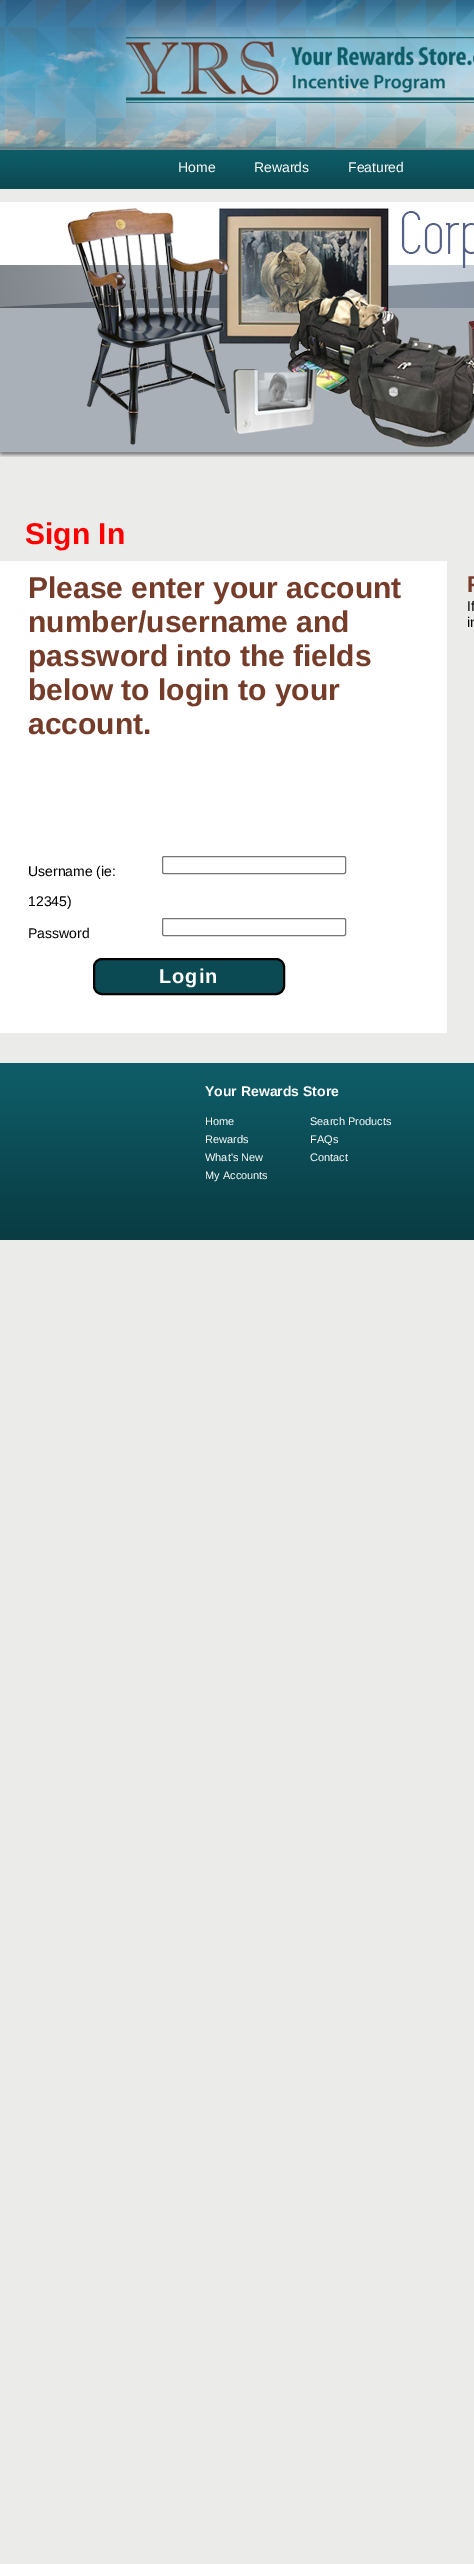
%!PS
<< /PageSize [474 2564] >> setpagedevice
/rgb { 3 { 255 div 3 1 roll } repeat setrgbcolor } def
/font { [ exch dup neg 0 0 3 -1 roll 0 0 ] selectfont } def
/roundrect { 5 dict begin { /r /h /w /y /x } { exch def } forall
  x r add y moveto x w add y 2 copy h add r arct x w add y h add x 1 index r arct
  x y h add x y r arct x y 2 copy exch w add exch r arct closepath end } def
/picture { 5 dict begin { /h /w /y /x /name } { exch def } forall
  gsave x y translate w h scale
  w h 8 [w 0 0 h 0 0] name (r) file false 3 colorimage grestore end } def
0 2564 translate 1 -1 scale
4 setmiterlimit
235 235 234 rgb
0 0 474 2564 rectfill
(img/1.rgb) 0 0 474 189 picture
(img/2.rgb) 101 6 373 126 picture
14 92 104 rgb
9 150 436 1 rectfill
(img/3.rgb) 0 452 474 5 picture
255 255 255 rgb
0 202 474 250 rectfill
(img/4.rgb) 0 208 474 244 picture
0 561 447 472 rectfill
118 118 118 rgb
162.5 856.5 183 17 1.5 roundrect stroke
162.5 918.5 183 17 1.5 roundrect stroke
11 74 83 rgb
94 959 190 35 8 roundrect gsave fill grestore
0 0 0 rgb
2 setlinewidth
stroke
(img/5.rgb) 0 1063 474 177 picture
/LiberationSans-Regular 14 font
255 255 255 rgb
[
  [(Home) 178 172]
  [(Rewards) 254 172]
  [(Featured) 348 172]
] { aload pop moveto show } forall
/LiberationSans-Bold 30 font
255 0 0 rgb
25 544 moveto (Sign In) show
117 60 41 rgb
[
  [(Please enter your account) 28 598]
  [(number/username and) 28 632]
  [(password into the fields) 28 666]
  [(below to login to your) 28 700]
  [(account.) 28 734]
] { aload pop moveto show } forall
/LiberationSans-Regular 14 font
0 0 0 rgb
[
  [(Username \(ie:) 28 876]
  [(12345\)) 28 906]
  [(Password) 28 938]
] { aload pop moveto show } forall
/LiberationSans-Bold 20 font
255 255 255 rgb
159 983 moveto 1 0 (Login) ashow
/LiberationSans-Bold 23 font
117 60 41 rgb
467 592 moveto (F) show
/LiberationSans-Regular 14 font
0 0 0 rgb
467 611 moveto (If) show
467 627 moveto (in) show
/LiberationSans-Bold 14 font
255 255 255 rgb
205 1096 moveto (Your Rewards Store) show
/LiberationSans-Regular 11 font
[
  [(Home) 205 1125]
  [(Rewards) 205 1143]
  [(What's New) 205 1161]
  [(My Accounts) 205 1179]
  [(Search Products) 310 1125]
  [(FAQs) 310 1143]
  [(Contact) 310 1161]
] { aload pop moveto show } forall
showpage
